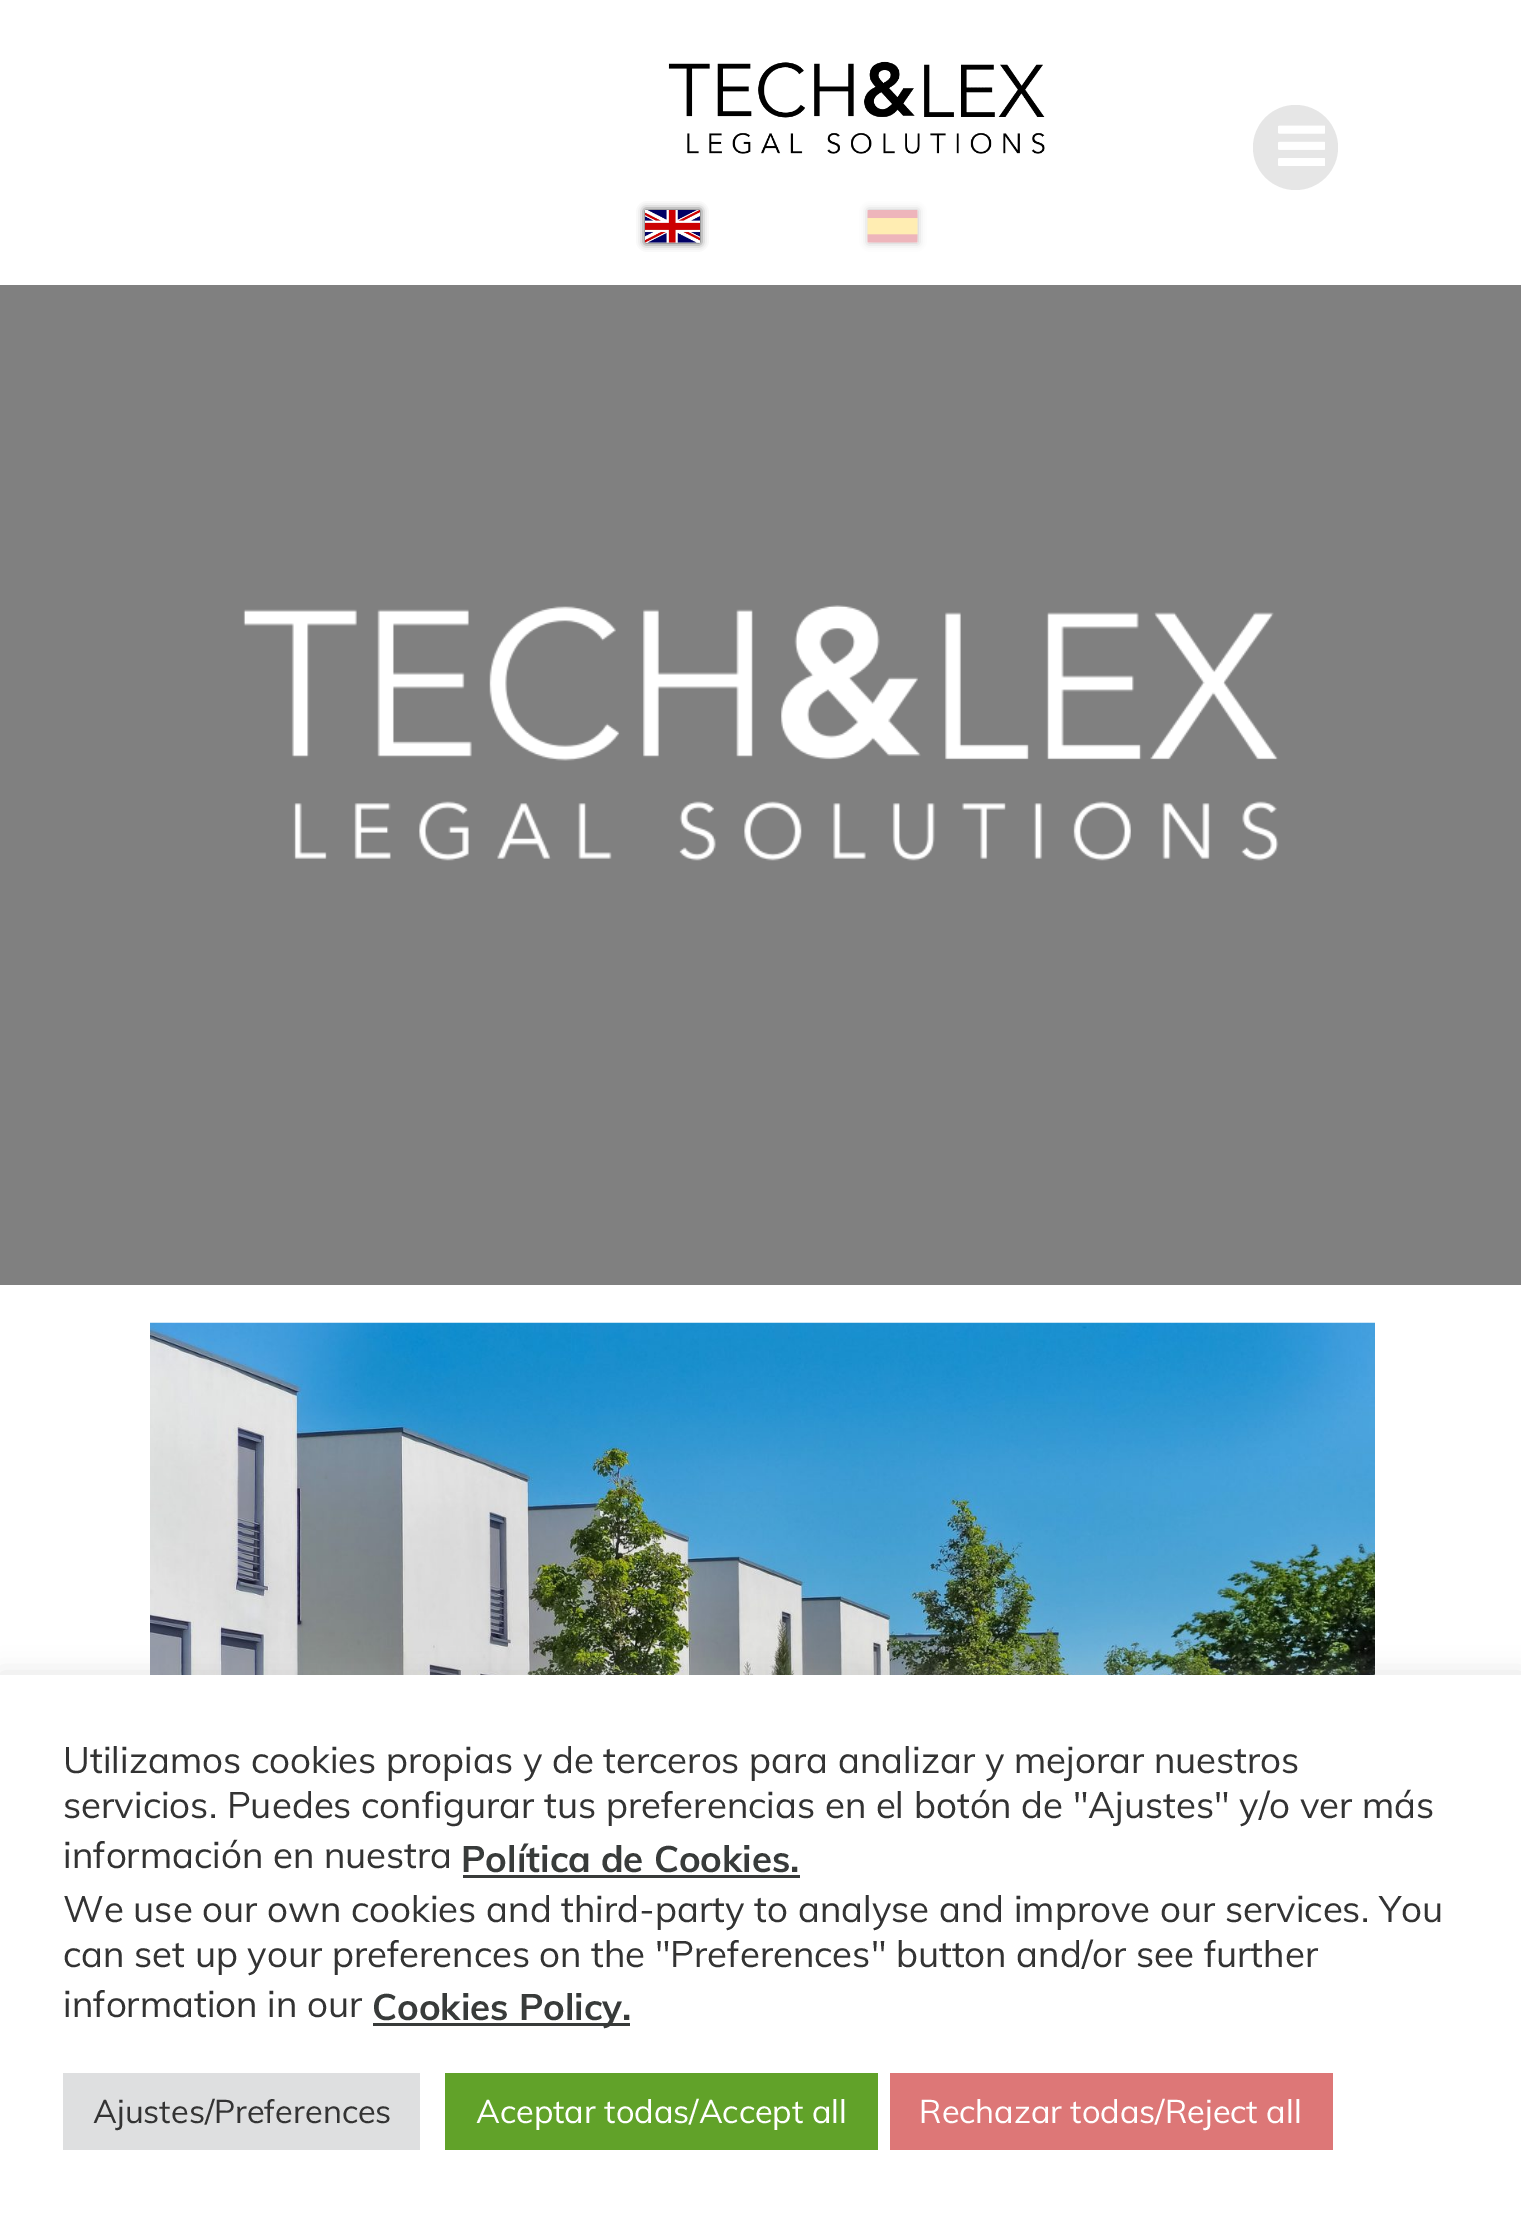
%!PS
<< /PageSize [1521 2225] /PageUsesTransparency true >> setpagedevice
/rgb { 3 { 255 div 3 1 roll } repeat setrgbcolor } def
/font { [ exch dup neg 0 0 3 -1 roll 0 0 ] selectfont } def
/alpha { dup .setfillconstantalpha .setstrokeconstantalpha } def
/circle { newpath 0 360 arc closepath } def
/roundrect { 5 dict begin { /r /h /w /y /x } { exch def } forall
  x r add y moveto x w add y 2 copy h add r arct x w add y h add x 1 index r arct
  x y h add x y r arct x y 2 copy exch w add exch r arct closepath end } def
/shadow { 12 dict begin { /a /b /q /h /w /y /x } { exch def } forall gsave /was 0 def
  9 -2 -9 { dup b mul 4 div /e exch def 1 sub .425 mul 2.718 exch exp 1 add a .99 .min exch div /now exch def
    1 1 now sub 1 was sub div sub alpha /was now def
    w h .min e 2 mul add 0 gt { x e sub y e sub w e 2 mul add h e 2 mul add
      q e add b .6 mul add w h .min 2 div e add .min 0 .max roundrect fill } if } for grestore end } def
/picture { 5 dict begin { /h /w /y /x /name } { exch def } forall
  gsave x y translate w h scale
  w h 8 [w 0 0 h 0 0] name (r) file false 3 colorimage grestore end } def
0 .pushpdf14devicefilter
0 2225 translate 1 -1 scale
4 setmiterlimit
255 255 255 rgb
0 0 1521 2225 rectfill
(img/1.rgb) 668 61 377 93 picture
230 230 230 rgb
1295.5 147.5 42.5 circle fill
(img/2.rgb) 1278 125 47 41 picture
0 4 3 rgb
645 210 55 33 0 4 0.78 shadow
(img/3.rgb) 645 210 55 33 picture
gsave
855 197 moveto 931 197 lineto 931 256 lineto 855 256 lineto closepath 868 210 moveto 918 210 lineto 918 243 lineto 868 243 lineto closepath eoclip newpath
179 180 179 rgb
868 210 50 33 0 4 0.78 shadow
grestore
(img/4.rgb) 867 210 51 33 picture
128 128 128 rgb
0 285 1521 1000 rectfill
(img/5.rgb) 243 605 1036 256 picture
(img/6.rgb) 150 1322 1225 353 picture
172 171 171 rgb
0 1673 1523 550 0 12.5 0.3 shadow
[
  [0 1675 1521 550 255 255 255]
  [463 1875 337 3 56 59 58]
  [373 2023 257 3 56 59 58]
  [63 2073 357 77 222 223 224]
  [445 2073 433 77 97 162 41]
  [890 2073 443 77 221 119 119]
] { aload pop rgb rectfill } forall
/Muli-Regular 36.65 font
51 51 51 rgb
[
  [(Utilizamos cookies propias y de terceros para analizar y mejorar nuestros) 63 1773]
  [(servicios. Puedes configurar tus preferencias en el botón de "Ajustes" y/o ver más) 63 1818]
  [(información en nuestra) 63 1868]
] { aload pop moveto show } forall
/Muli-Bold 36.65 font
56 59 58 rgb
461 1872 moveto (Política de Cookies.) show
/Muli-Regular 36.65 font
51 51 51 rgb
[
  [(We use our own cookies and third-party to analyse and improve our services. You) 63 1922]
  [(can set up your preferences) 63 1967]
  [(on the "Preferences" button and/or see further) 539 1967]
  [(information in our) 63 2017]
] { aload pop moveto show } forall
/Muli-Bold 36.65 font
56 59 58 rgb
372 2020 moveto (Cookies Policy.) show
/Muli-Regular 32.5 font
51 51 51 rgb
93 2123 moveto (Ajustes/Preferences) show
255 255 255 rgb
476 2123 moveto (Aceptar todas/Accept all) show
919 2123 moveto (Rechazar todas/Reject all) show
.poppdf14devicefilter showpage
